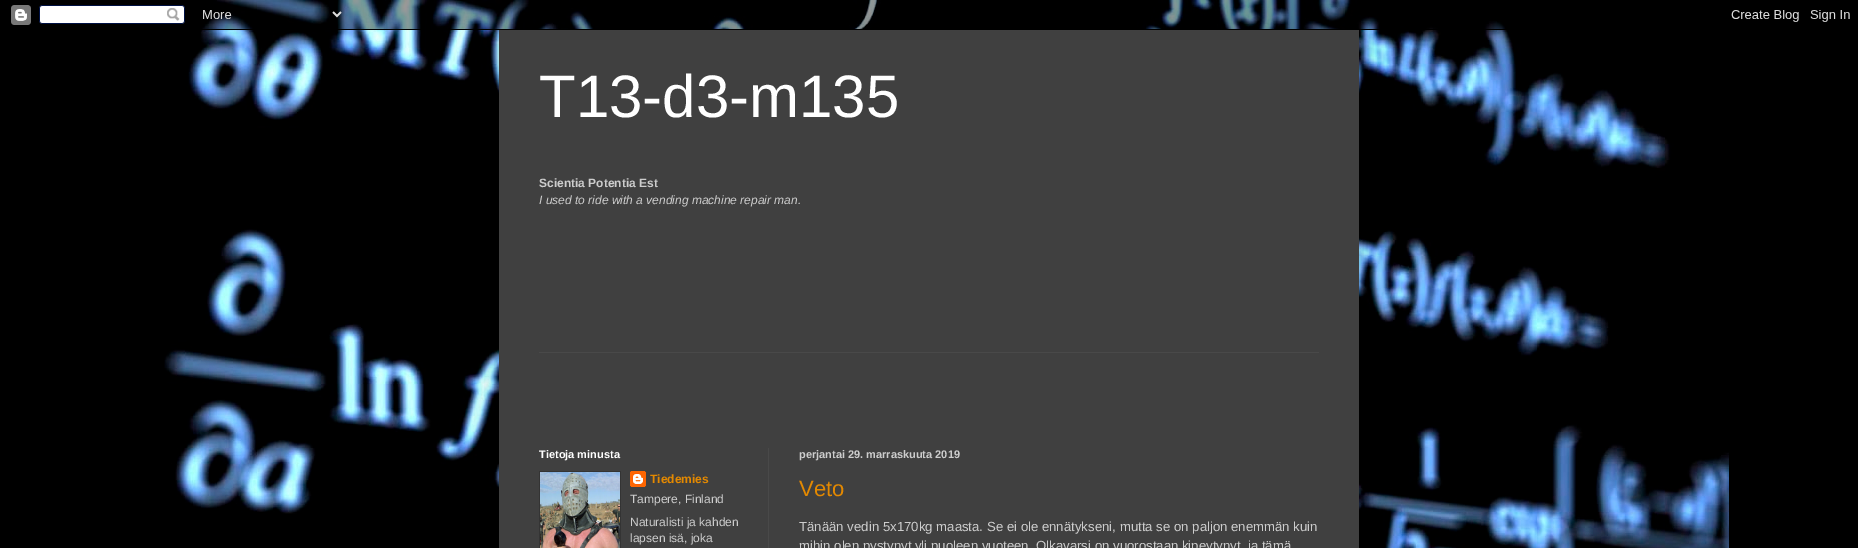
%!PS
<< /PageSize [1858 548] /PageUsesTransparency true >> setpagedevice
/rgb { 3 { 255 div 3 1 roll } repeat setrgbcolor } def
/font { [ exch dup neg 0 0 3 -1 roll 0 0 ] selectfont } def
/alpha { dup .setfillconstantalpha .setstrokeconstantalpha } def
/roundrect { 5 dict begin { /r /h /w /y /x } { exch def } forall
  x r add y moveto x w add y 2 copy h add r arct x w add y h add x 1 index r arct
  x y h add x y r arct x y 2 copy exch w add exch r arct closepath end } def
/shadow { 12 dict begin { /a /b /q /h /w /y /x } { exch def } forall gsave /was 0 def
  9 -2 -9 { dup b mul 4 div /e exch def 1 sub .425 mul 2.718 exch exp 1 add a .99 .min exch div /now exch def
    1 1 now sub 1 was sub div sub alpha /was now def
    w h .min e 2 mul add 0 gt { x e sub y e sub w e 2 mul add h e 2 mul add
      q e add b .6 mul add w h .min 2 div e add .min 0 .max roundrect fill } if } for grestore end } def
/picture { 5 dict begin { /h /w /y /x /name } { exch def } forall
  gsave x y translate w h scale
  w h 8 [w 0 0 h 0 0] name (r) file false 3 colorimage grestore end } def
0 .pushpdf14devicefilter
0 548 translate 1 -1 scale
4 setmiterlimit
0 0 0 rgb
0 0 1858 548 rectfill
(img/1.rgb) 164 0 1565 548 picture
499 30 860 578 0 20 0.15 shadow
(img/2.rgb) 11 0 1839 30 picture
[
  [499 30 860 518 64 64 64]
  [539 352 780 1 73 73 73]
  [768 448 1 100 73 73 73]
  [539 471 82 77 52 52 52]
] { aload pop rgb rectfill } forall
(img/3.rgb) 540 472 80 76 picture
(img/4.rgb) 630 471 16 16 picture
/LiberationSans-Regular 60 font
255 255 255 rgb
539 117 moveto (T13-d3-m135) show
/LiberationSans-Bold 12 font
205 205 205 rgb
539 187 moveto (Scientia Potentia Est) show
/LiberationSans-Italic 12 font
539 204 moveto (I used to ride with a vending machine repair man.) show
/LiberationSans-Bold 11 font
255 255 255 rgb
539 458 moveto (Tietoja minusta) show
/LiberationSans-Bold 12 font
228 137 0 rgb
650 483 moveto (Tiedemies) show
/LiberationSans-Regular 12 font
205 205 205 rgb
[
  [(Tampere, Finland) 630 503]
  [(Naturalisti ja kahden) 630 526]
  [(lapsen isä, joka) 630 542]
] { aload pop moveto show } forall
/LiberationSans-Bold 11 font
799 458 moveto (perjantai 29. marraskuuta 2019) show
/LiberationSans-Regular 22 font
228 137 0 rgb
799 496 moveto (Veto) show
/LiberationSans-Regular 13.2 font
205 205 205 rgb
799 531 moveto (Tänään vedin 5x170kg maasta. Se ei ole ennätykseni, mutta se on paljon enemmän kuin) show
799 550 moveto (mihin olen pystynyt yli puoleen vuoteen. Olkavarsi on vuorostaan kipeytynyt, ja tämä) show
.poppdf14devicefilter showpage
